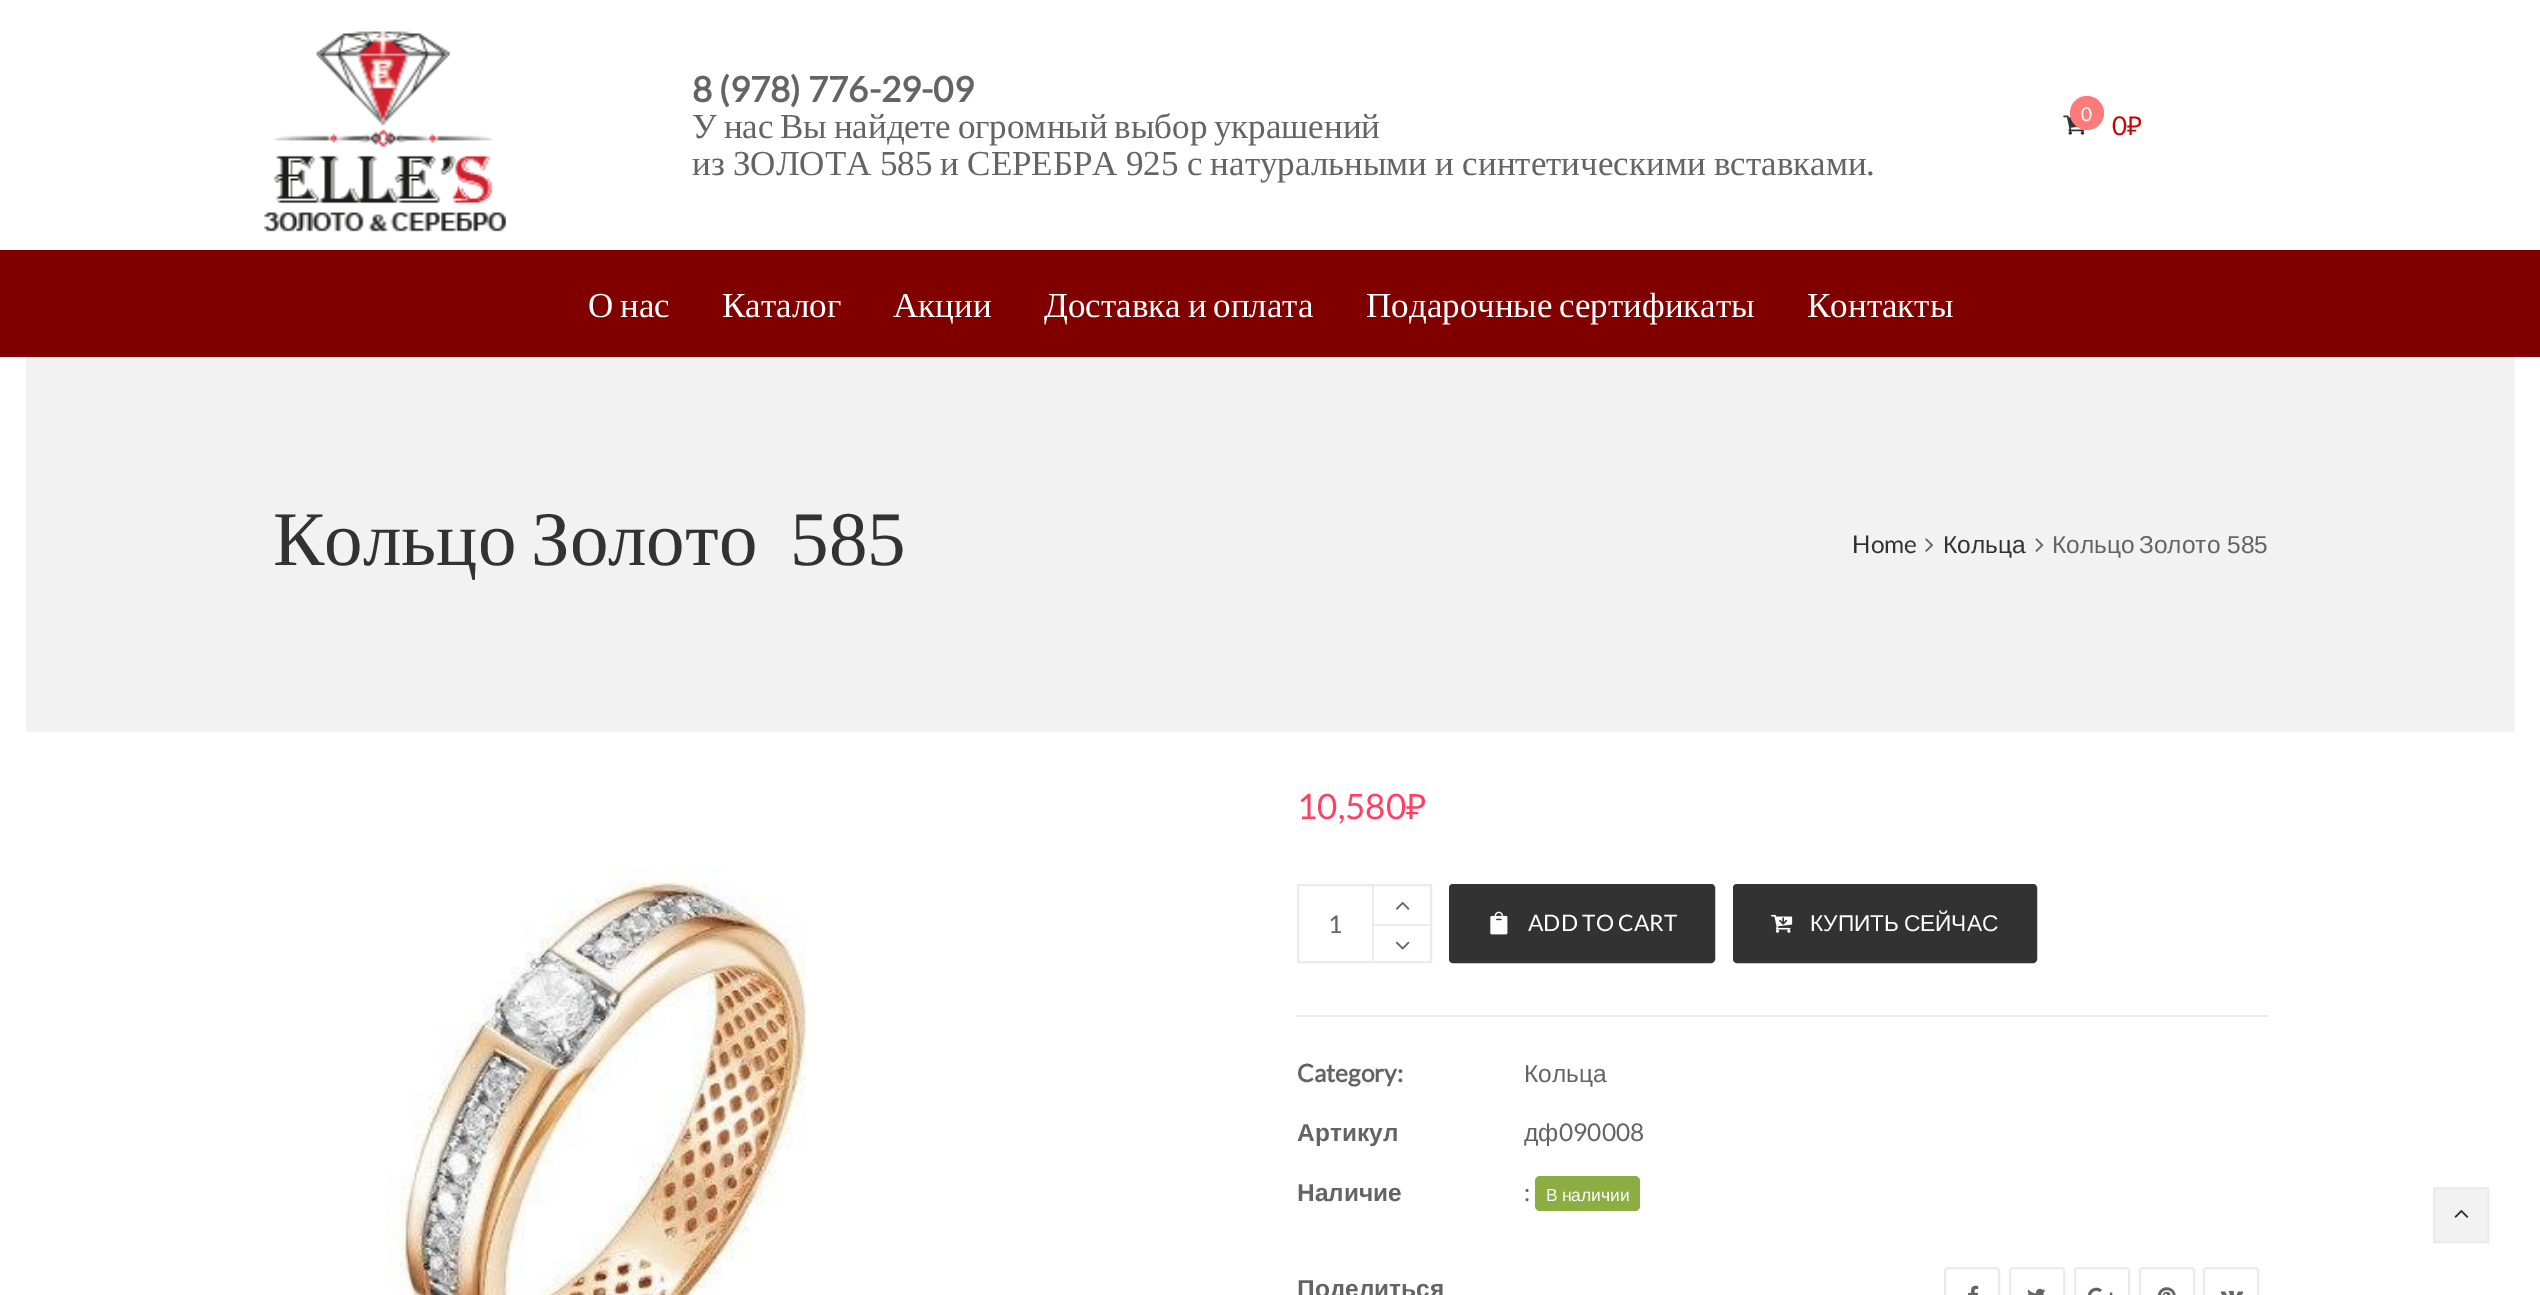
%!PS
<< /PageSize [2540 1295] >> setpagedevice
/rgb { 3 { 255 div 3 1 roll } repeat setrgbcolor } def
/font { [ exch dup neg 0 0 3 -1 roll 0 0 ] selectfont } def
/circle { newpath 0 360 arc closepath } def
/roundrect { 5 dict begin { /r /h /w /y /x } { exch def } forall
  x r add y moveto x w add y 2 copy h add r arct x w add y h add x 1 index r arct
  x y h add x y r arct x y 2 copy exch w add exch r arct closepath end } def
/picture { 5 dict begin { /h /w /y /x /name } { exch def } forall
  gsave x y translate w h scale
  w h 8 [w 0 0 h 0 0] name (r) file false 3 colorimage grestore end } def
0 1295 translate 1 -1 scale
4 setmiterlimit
255 255 255 rgb
0 0 2540 1295 rectfill
(img/1.rgb) 264 31 242 202 picture
(img/2.rgb) 2063 115 22 20 picture
255 123 123 rgb
2087 113 17 circle fill
128 0 0 rgb
0 250 2540 107 rectfill
242 242 242 rgb
26 357 2489 375 rectfill
(img/3.rgb) 1925 538 9 14 picture
(img/4.rgb) 2035 538 9 14 picture
(img/5.rgb) 385 868 430 427 picture
235 235 235 rgb
1297 1015 971 2 rectfill
2 setlinewidth
1298 885 133 77 rectstroke
1372 886 2 75 rectfill
1374 924 56 2 rectfill
(img/6.rgb) 1395 901 15 9 picture
(img/7.rgb) 1395 941 15 9 picture
50 50 50 rgb
1451 886 262 75 2 roundrect gsave fill grestore
4 setlinewidth
stroke
(img/8.rgb) 1490 911 18 24 picture
1735 886 300 75 2 roundrect gsave fill grestore
stroke
(img/9.rgb) 1771 914 22 19 picture
139 173 66 rgb
1535 1176 105 35 5 roundrect fill
235 235 235 rgb
2 setlinewidth
1945 1268 54 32 3 roundrect stroke
(img/10.rgb) 1968 1285 11 10 picture
2010 1268 54 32 3 roundrect stroke
(img/11.rgb) 2027 1288 19 7 picture
2075 1268 54 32 3 roundrect stroke
(img/12.rgb) 2087 1287 26 8 picture
2140 1268 54 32 3 roundrect stroke
(img/13.rgb) 2157 1287 19 8 picture
2204 1268 54 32 3 roundrect stroke
(img/14.rgb) 2220 1290 24 5 picture
242 242 242 rgb
2434 1188 moveto 2488 1188 lineto 2488 1242 lineto 2434 1242 lineto closepath gsave fill grestore
235 235 235 rgb
stroke
(img/15.rgb) 2454 1209 15 9 picture
/Lato-Bold 35 font
100 100 100 rgb
692 102 moveto (8 \(978\) 776-29-09) show
/LiberationSerif-Regular 35 font
692 138 moveto -2 0 32 (У нас Вы найдете огромный выбор украшений) widthshow
692 175 moveto -0.5 0 32 (из ЗОЛОТА 585 и СЕРЕБРА 925 с натуральными и синтетическими вставками.) widthshow
/Lato-Regular 19 font
255 255 255 rgb
2081 121 moveto (0) show
/Lato-Regular 26 font
204 0 0 rgb
2112 135 moveto (0) show
/NotoSans-Regular 26 font
2127 135 moveto (₽) show
/LiberationSerif-Regular 35 font
255 255 255 rgb
588 317 moveto -2 0 32 (О нас) widthshow
722 317 moveto (Каталог) show
893 317 moveto (Акции) show
1044 317 moveto -2 0 32 (Доставка и оплата) widthshow
1366 317 moveto -2 0 32 (Подарочные сертификаты) widthshow
1807 317 moveto (Контакты) show
/LiberationSerif-Regular 77 font
50 50 50 rgb
273 565 moveto (Кольцо) show
531 565 moveto 14 0 32 (Золото 585) widthshow
/Lato-Regular 24.5 font
1852 553 moveto (Home) show
/LiberationSans-Regular 24.5 font
1943 553 moveto (Кольца) show
100 100 100 rgb
2052 553 moveto (Кольцо) show
2139 553 moveto (Золото 585) show
/Lato-Regular 35 font
255 64 100 rgb
1297 819 moveto (10,580) show
/NotoSans-Regular 35 font
1406 819 moveto (₽) show
/Lato-Regular 24.5 font
100 100 100 rgb
1328 933 moveto (1) show
/Lato-Regular 22.75 font
255 255 255 rgb
1528 931 moveto (ADD TO CART) show
/LiberationSans-Regular 22.75 font
1810 931 moveto -2 0 32 (КУПИТЬ СЕЙЧАС) widthshow
/Lato-Bold 24.5 font
100 100 100 rgb
1297 1082 moveto (Category:) show
/LiberationSans-Regular 24.5 font
1524 1082 moveto (Кольца) show
/LiberationSans-Bold 24.5 font
1297 1141 moveto (Артикул) show
/LiberationSans-Regular 24.5 font
1524 1141 moveto (дф) show
/Lato-Regular 24.5 font
1559 1141 moveto (090008) show
/LiberationSans-Bold 24.5 font
1297 1201 moveto (Наличие) show
/Lato-Regular 24.5 font
1524 1201 moveto (:) show
/LiberationSans-Regular 17.5 font
255 255 255 rgb
1546 1201 moveto -1 0 32 (В наличии) widthshow
/LiberationSans-Bold 24.5 font
100 100 100 rgb
1297 1297 moveto (Поделиться) show
showpage
